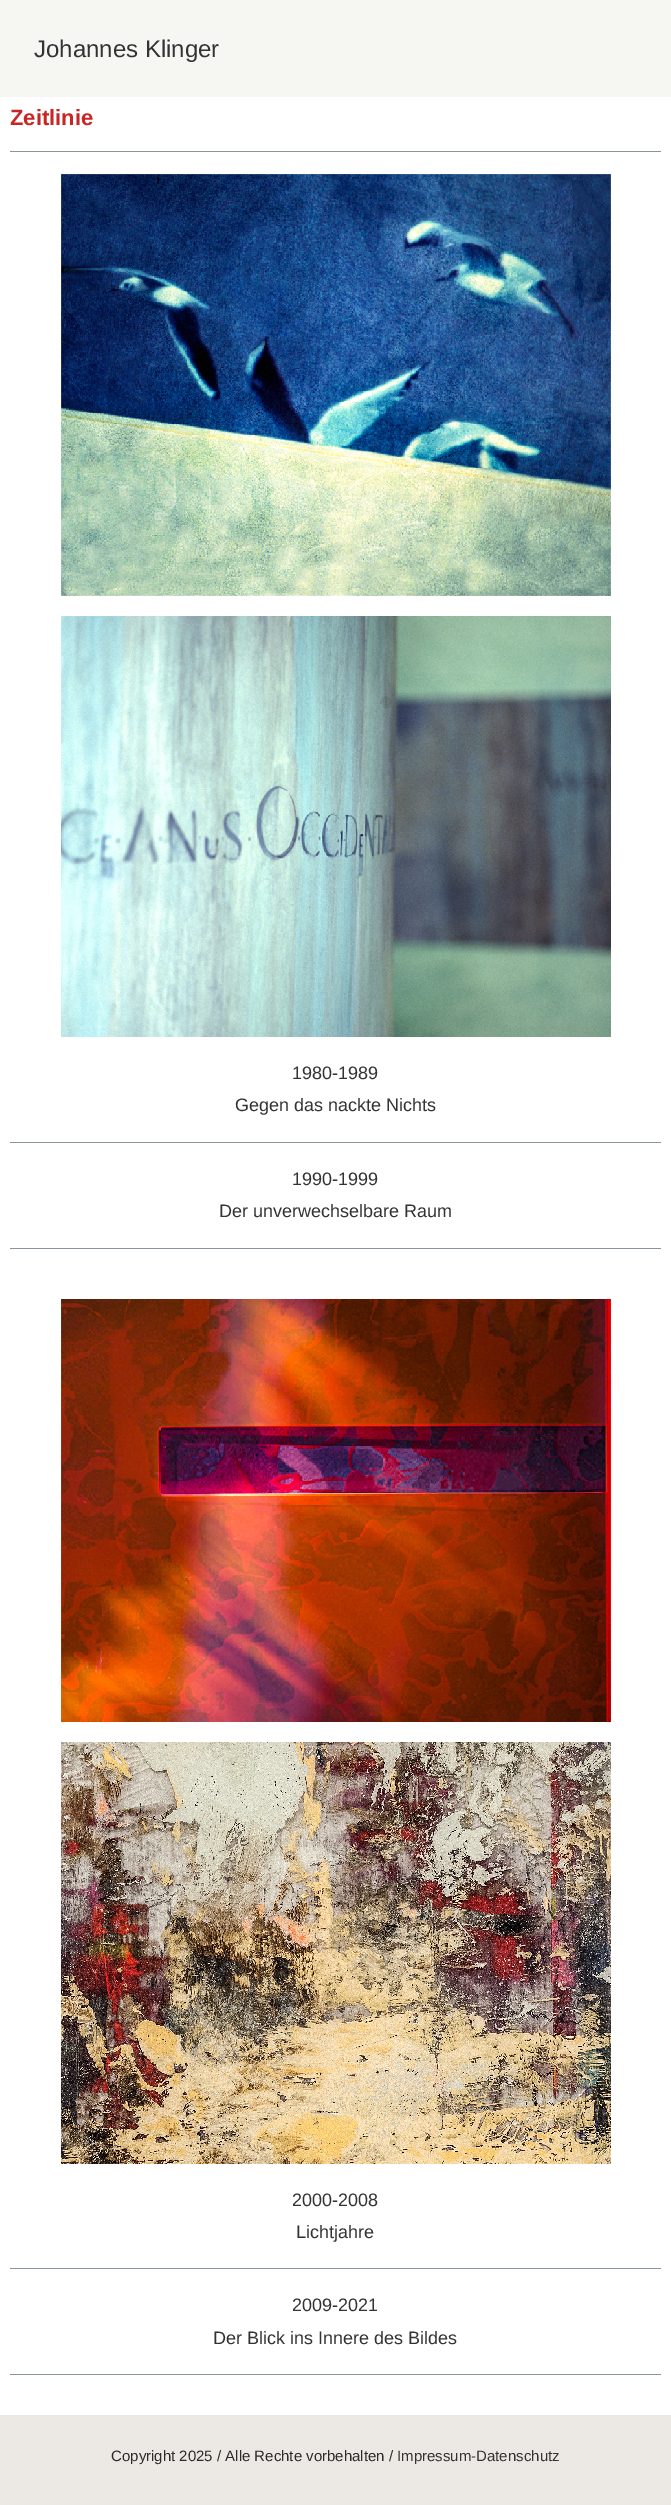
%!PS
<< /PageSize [671 2505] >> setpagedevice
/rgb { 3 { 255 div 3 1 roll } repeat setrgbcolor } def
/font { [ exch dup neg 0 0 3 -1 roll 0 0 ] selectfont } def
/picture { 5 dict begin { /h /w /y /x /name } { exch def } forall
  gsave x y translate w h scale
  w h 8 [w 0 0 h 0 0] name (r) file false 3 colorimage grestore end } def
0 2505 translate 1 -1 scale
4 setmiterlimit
255 255 255 rgb
0 0 671 2505 rectfill
246 246 243 rgb
0 0 671 97 rectfill
137 149 155 rgb
10 151 651 1 rectfill
(img/1.rgb) 61 174 550 422 picture
(img/2.rgb) 61 616 550 421 picture
10 1142 651 1 rectfill
10 1248 651 1 rectfill
(img/3.rgb) 61 1299 550 423 picture
(img/4.rgb) 61 1742 550 422 picture
[
  [10 2268 651 1 137 149 155]
  [10 2374 651 1 137 149 155]
  [0 2415 671 90 236 232 228]
] { aload pop rgb rectfill } forall
/LiberationSans-Regular 24 font
51 51 51 rgb
34 57 moveto (Johannes Klinger) show
/LiberationSans-Bold 22 font
200 38 38 rgb
10 125 moveto (Zeitlinie) show
/LiberationSans-Regular 18 font
51 51 51 rgb
[
  [(1980-1989) 292 1079]
  [(Gegen das nackte Nichts) 235 1111]
  [(1990-1999) 292 1185]
  [(Der unverwechselbare Raum) 219 1217]
  [(2000-2008) 292 2206]
  [(Lichtjahre) 296 2238]
  [(2009-2021) 292 2311]
  [(Der Blick ins Innere des Bildes) 213 2344]
] { aload pop moveto show } forall
/LiberationSans-Regular 15 font
44 43 43 rgb
111 2461 moveto (Copyright 2025 / Alle Rechte vorbehalten /) show
51 51 51 rgb
397 2461 moveto (Impressum-Datenschutz) show
showpage
